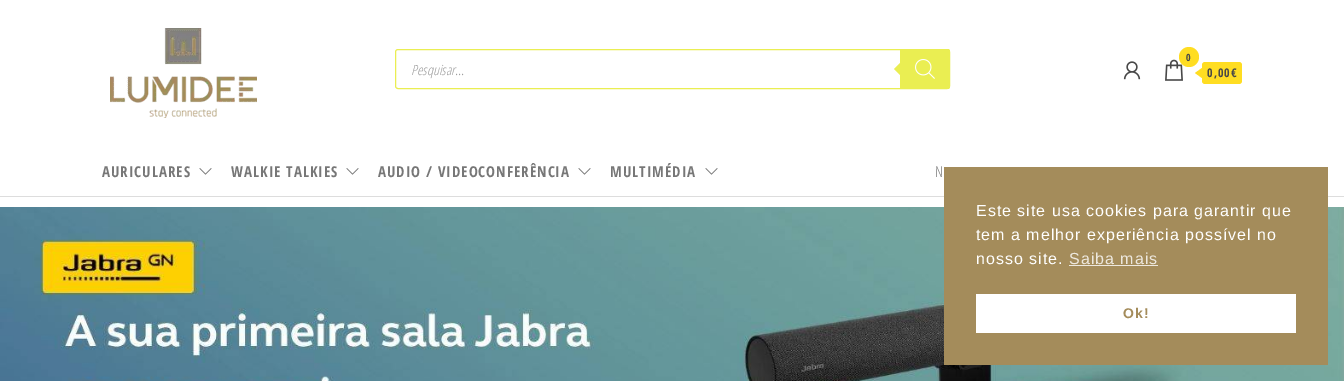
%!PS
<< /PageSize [1344 381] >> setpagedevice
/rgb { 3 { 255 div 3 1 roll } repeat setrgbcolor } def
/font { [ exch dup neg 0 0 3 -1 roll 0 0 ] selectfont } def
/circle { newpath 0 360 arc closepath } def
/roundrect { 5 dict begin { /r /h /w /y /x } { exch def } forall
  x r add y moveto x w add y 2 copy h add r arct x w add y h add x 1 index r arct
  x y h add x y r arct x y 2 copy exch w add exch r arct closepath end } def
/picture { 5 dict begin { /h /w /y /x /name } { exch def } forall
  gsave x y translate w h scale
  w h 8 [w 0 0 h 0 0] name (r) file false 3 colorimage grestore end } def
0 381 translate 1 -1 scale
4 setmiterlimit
255 255 255 rgb
0 0 1344 381 rectfill
(img/1.rgb) 110 28 147 90 picture
234 238 82 rgb
395.5 49.5 554 39 2.5 roundrect stroke
900 49 moveto 948 49 lineto 949 49 950 50 950 51 curveto 950 87 lineto 950 88 949 89 948 89 curveto 900 89 lineto closepath fill
902 61 moveto 902 77 lineto 894 69 lineto closepath fill
(img/2.rgb) 915 59 20 20 picture
(img/3.rgb) 1123 61 18 19 picture
(img/4.rgb) 1165 59 18 22 picture
255 221 34 rgb
1189 57 10 circle fill
1202 62 40 22 3 roundrect fill
1202 68 moveto 1202 78 lineto 1195 73 lineto closepath fill
221 221 221 rgb
0 196 1344 1 rectfill
(img/5.rgb) 199 168 13 7 picture
(img/5.rgb) 346 168 13 7 picture
(img/5.rgb) 578 168 13 7 picture
(img/5.rgb) 705 168 13 7 picture
(img/6.rgb) 0 207 1344 174 picture
[
  [944 167 384 198 164 140 91]
  [1069 265 89 1 237 232 222]
  [976 294 320 39 255 255 255]
] { aload pop rgb rectfill } forall
/OpenSansCondensed-LightItalic 14 font
153 153 153 rgb
411 75 moveto (Pesquisar...) show
/OpenSansCondensed-Bold 10 font
72 72 72 rgb
1186 61 moveto 1 0 (0) ashow
/OpenSansCondensed-Bold 12 font
1207 77 moveto 1 0 (0,00€) ashow
/OpenSansCondensed-Bold 15 font
119 119 119 rgb
102 177 moveto 1 0 (AURICULARES) ashow
231 177 moveto 1 0 (WALKIE TALKIES) ashow
378 177 moveto 1 0 (AUDIO / VIDEOCONFERÊNCIA) ashow
610 177 moveto 1 0 (MULTIMÉDIA) ashow
/OpenSansCondensed-Light 15 font
935 177 moveto 1 0 (N) ashow
/LiberationSans-Regular 16 font
255 255 255 rgb
976 216 moveto 1 0 (Este site usa cookies para garantir que) ashow
976 240 moveto 1 0 (tem a melhor experiência possível no) ashow
976 264 moveto 1 0 (nosso site.) ashow
237 232 222 rgb
1069 264 moveto 1 0 (Saiba mais) ashow
/LiberationSans-Bold 14 font
164 140 91 rgb
1123 318 moveto 1 0 (Ok!) ashow
showpage
